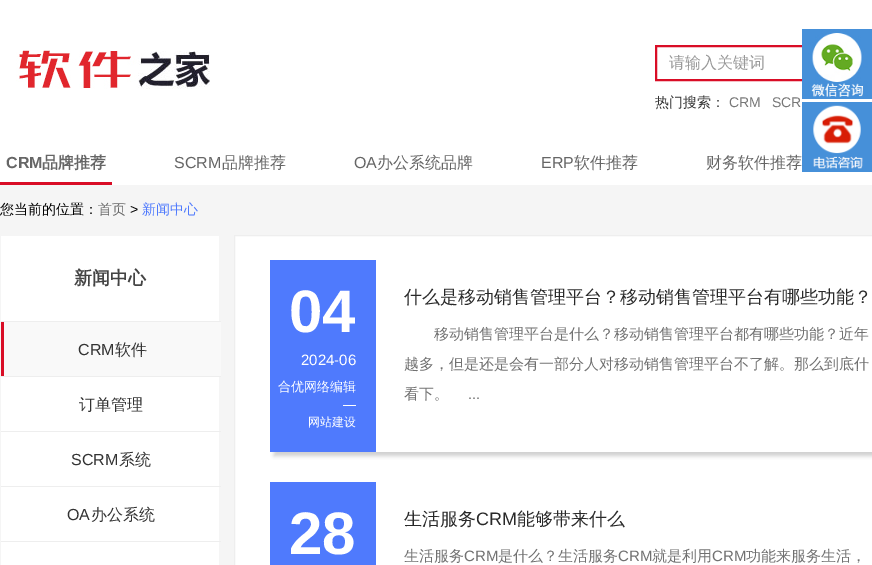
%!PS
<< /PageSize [872 565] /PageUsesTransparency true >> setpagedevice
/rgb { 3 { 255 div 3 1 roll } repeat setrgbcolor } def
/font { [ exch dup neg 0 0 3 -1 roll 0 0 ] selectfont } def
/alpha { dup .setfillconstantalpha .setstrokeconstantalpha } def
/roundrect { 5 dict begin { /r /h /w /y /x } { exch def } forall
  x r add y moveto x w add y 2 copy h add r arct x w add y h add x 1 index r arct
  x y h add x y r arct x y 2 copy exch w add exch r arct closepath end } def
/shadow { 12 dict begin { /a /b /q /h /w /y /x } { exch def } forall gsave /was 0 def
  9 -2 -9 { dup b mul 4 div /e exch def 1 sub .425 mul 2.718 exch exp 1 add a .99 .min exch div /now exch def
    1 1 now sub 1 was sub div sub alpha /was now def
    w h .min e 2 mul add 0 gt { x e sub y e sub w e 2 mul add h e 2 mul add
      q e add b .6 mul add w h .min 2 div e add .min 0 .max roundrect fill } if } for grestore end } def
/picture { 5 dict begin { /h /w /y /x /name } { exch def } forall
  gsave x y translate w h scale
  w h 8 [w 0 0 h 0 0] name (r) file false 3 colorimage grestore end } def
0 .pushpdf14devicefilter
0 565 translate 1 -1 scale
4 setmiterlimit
255 255 255 rgb
0 0 872 565 rectfill
(img/1.rgb) 16 50 194 39 picture
217 13 38 rgb
2 setlinewidth
656 46 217 34 rectstroke
70 144 217 rgb
802 97 70 2 rectfill
(img/2.rgb) 802 29 70 68 picture
802 169 70 3 rectfill
(img/3.rgb) 802 102 70 67 picture
[
  [0 182 112 3 217 13 38]
  [0 185 872 380 245 245 245]
  [1 236 218 329 255 255 255]
  [1 321 220 1 238 238 238]
  [4 322 217 54 249 249 249]
  [1 322 3 54 217 13 38]
  [1 376 220 1 238 238 238]
  [1 431 220 1 238 238 238]
  [1 486 220 1 238 238 238]
  [1 541 220 1 238 238 238]
] { aload pop rgb rectfill } forall
255 255 255 rgb
234.5 235.5 moveto 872.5 235.5 lineto 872.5 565.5 lineto 234.5 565.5 lineto closepath gsave fill grestore
238 238 238 rgb
1 setlinewidth
stroke
gsave
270 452 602 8 rectclip
207 207 207 rgb
274 264 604 192 0 2 1 shadow
grestore
[
  [270 260 106 192 79 122 253]
  [343 405 13 1 255 255 255]
  [270 482 106 83 79 122 253]
] { aload pop rgb rectfill } forall
/WenQuanYiZenHei-Medium 16 font
153 153 153 rgb
669 68 moveto (请输入关键词) show
/WenQuanYiZenHei-Medium 14 font
51 51 51 rgb
655 107 moveto (热门搜索：) show
/LiberationSans-Regular 14 font
119 119 119 rgb
729 107 moveto (CRM) show
772 107 moveto (SCR) show
/LiberationSans-Bold 16 font
102 102 102 rgb
6 168 moveto (CRM) show
/WenQuanYiZenHei-Bold 16 font
42 168 moveto (品牌推荐) show
/LiberationSans-Regular 16 font
174 168 moveto (SCRM) show
/WenQuanYiZenHei-Medium 16 font
222 168 moveto (品牌推荐) show
/LiberationSans-Regular 16 font
354 168 moveto (OA) show
/WenQuanYiZenHei-Medium 16 font
377 168 moveto (办公系统品牌) show
/LiberationSans-Regular 16 font
541 168 moveto (ERP) show
/WenQuanYiZenHei-Medium 16 font
574 168 moveto (软件推荐) show
706 168 moveto (财务软件推荐) show
/WenQuanYiZenHei-Medium 14 font
0 0 0 rgb
0 214 moveto (您当前的位置：) show
102 102 102 rgb
98 214 moveto (首页) show
/LiberationSans-Regular 14 font
0 0 0 rgb
130 214 moveto (>) show
/WenQuanYiZenHei-Medium 14 font
79 122 253 rgb
142 214 moveto (新闻中心) show
/WenQuanYiZenHei-Bold 18 font
68 68 68 rgb
74 284 moveto (新闻中心) show
/LiberationSans-Regular 16 font
51 51 51 rgb
78 355 moveto (CRM) show
/WenQuanYiZenHei-Medium 16 font
115 355 moveto (软件) show
79 410 moveto (订单管理) show
/LiberationSans-Regular 16 font
71 465 moveto (SCRM) show
/WenQuanYiZenHei-Medium 16 font
119 465 moveto (系统) show
/LiberationSans-Regular 16 font
67 520 moveto (OA) show
/WenQuanYiZenHei-Medium 16 font
91 520 moveto (办公系统) show
/LiberationSans-Bold 60 font
255 255 255 rgb
289 332 moveto (04) show
/LiberationSans-Regular 15 font
301 365 moveto (2024-06) show
/WenQuanYiZenHei-Medium 13 font
278 391 moveto (合优网络编辑) show
/WenQuanYiZenHei-Medium 12 font
308 426 moveto (网站建设) show
/WenQuanYiZenHei-Medium 18 font
41 41 41 rgb
404 303 moveto (什么是移动销售管理平台？移动销售管理平台有哪些功能？) show
/WenQuanYiZenHei-Medium 15 font
113 113 113 rgb
[
  [(移动销售管理平台是什么？移动销售管理平台都有哪些功能？近年) 434 339]
  [(越多，但是还是会有一部分人对移动销售管理平台不了解。那么到底什) 404 369]
  [(看下。) 404 399]
] { aload pop moveto show } forall
/LiberationSans-Regular 15 font
468 399 moveto (...) show
/LiberationSans-Bold 60 font
255 255 255 rgb
289 554 moveto (28) show
/WenQuanYiZenHei-Medium 18 font
41 41 41 rgb
404 525 moveto (生活服务) show
/LiberationSans-Regular 18 font
476 525 moveto (CRM) show
/WenQuanYiZenHei-Medium 18 font
517 525 moveto (能够带来什么) show
/WenQuanYiZenHei-Medium 15 font
113 113 113 rgb
404 561 moveto (生活服务) show
/LiberationSans-Regular 15 font
464 561 moveto (CRM) show
/WenQuanYiZenHei-Medium 15 font
498 561 moveto (是什么？生活服务) show
/LiberationSans-Regular 15 font
618 561 moveto (CRM) show
/WenQuanYiZenHei-Medium 15 font
652 561 moveto (就是利用) show
/LiberationSans-Regular 15 font
712 561 moveto (CRM) show
/WenQuanYiZenHei-Medium 15 font
746 561 moveto (功能来服务生活，) show
.poppdf14devicefilter showpage
